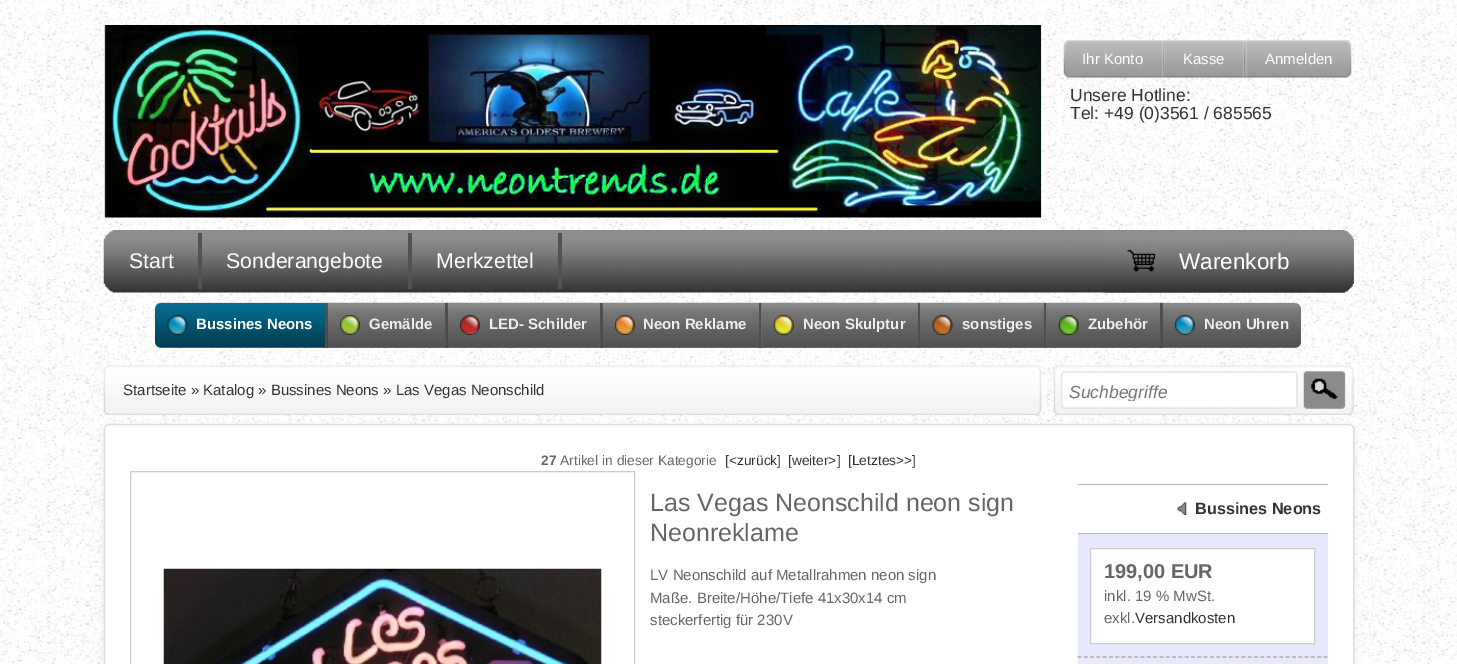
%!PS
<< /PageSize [1457 664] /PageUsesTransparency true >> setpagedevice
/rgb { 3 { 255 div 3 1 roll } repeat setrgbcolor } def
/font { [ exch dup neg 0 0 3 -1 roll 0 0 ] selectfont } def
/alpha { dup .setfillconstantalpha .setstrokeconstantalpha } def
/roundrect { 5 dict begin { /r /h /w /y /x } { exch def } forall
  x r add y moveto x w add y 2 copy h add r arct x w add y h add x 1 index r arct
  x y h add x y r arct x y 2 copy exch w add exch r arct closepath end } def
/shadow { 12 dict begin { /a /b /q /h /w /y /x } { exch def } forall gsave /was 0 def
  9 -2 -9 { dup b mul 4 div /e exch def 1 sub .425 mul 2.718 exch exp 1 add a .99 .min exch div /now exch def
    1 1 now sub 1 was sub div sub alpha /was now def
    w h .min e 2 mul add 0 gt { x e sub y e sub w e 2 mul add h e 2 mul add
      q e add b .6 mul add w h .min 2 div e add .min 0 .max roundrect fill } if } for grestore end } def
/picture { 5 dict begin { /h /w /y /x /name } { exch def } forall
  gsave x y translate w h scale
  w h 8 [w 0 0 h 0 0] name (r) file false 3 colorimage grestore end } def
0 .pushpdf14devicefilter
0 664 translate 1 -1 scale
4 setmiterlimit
255 255 255 rgb
0 0 1457 664 rectfill
(img/1.rgb) 0 0 1457 664 picture
(img/2.rgb) 104 25 938 193 picture
(img/3.rgb) 1162 40 3 38 picture
(img/4.rgb) 1063 40 100 38 picture
(img/7.rgb) 1246 40 106 38 picture
(img/5.rgb) 1243 40 4 38 picture
(img/6.rgb) 1165 40 79 38 picture
(img/8.rgb) 103 230 1251 63 picture
[
  [198 233 4 56 82 82 82]
  [408 233 4 56 82 82 82]
  [558 233 4 56 82 82 82]
] { aload pop rgb rectfill } forall
(img/9.rgb) 1103 230 251 63 picture
5 143 190 rgb
161 303 moveto 325 303 lineto 325 348 lineto 161 348 lineto 157.5 348 155 345.5 155 342 curveto 155 309 lineto 155 305.5 157.5 303 161 303 curveto closepath fill
(img/10.rgb) 155 302 172 46 picture
79 79 79 rgb
325 303 3 45 rectfill
(img/11.rgb) 167 315 21 20 picture
119 119 119 rgb
328 303 117 45 rectfill
(img/12.rgb) 327 302 121 46 picture
79 79 79 rgb
445 303 3 45 rectfill
(img/13.rgb) 340 315 20 20 picture
119 119 119 rgb
448 303 152 45 rectfill
(img/14.rgb) 447 302 156 46 picture
79 79 79 rgb
600 303 3 45 rectfill
(img/15.rgb) 460 315 20 20 picture
119 119 119 rgb
603 303 156 45 rectfill
(img/16.rgb) 602 302 160 46 picture
79 79 79 rgb
759 303 2 45 rectfill
(img/17.rgb) 615 315 20 20 picture
119 119 119 rgb
761 303 157 45 rectfill
(img/18.rgb) 761 302 159 46 picture
79 79 79 rgb
918 303 2 45 rectfill
(img/19.rgb) 773 315 21 20 picture
119 119 119 rgb
920 303 124 45 rectfill
(img/20.rgb) 920 302 127 46 picture
79 79 79 rgb
1044 303 2 45 rectfill
(img/21.rgb) 932 315 21 20 picture
119 119 119 rgb
1046 303 114 45 rectfill
(img/22.rgb) 1046 302 117 46 picture
79 79 79 rgb
1160 303 3 45 rectfill
(img/23.rgb) 1058 315 21 20 picture
119 119 119 rgb
1163 303 moveto 1295 303 lineto 1298.5 303 1301 305.5 1301 309 curveto 1301 342 lineto 1301 345.5 1298.5 348 1295 348 curveto 1163 348 lineto closepath fill
(img/24.rgb) 1162 302 139 46 picture
(img/25.rgb) 1175 315 20 20 picture
(img/26.rgb) 103 365 939 50 picture
(img/27.rgb) 1053 365 301 50 picture
221 221 221 rgb
104 425 1250 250 5 2 1 shadow
255 255 255 rgb
104.5 424.5 1249 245 4.5 roundrect gsave fill grestore
221 221 221 rgb
stroke
204 204 204 rgb
130.5 471.5 504 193 rectstroke
(img/28.rgb) 163 568 439 96 picture
184 184 184 rgb
1078 533 250 1 rectfill
1078 484 250 1 rectfill
(img/29.rgb) 1177 502 10 13 picture
232 232 255 rgb
1078 534 250 130 rectfill
255 255 255 rgb
1090.5 548.5 moveto 1314.5 548.5 lineto 1314.5 643.5 lineto 1090.5 643.5 lineto closepath gsave fill grestore
204 204 204 rgb
stroke
170 170 170 rgb
1.2 setlinewidth
[3.75 2.56] 0 setdash
1077.5 657 moveto 1327.5 657 lineto stroke
/LiberationSans-Regular 15 font
255 255 255 rgb
[
  [(Ihr Konto) 1082 64]
  [(Kasse) 1183 64]
  [(Anmelden) 1265 64]
] { aload pop moveto show } forall
/LiberationSans-Regular 17.5 font
51 51 51 rgb
1070 101 moveto (Unsere Hotline:) show
1070 119 moveto (Tel: +49 \(0\)3561 / 685565) show
/LiberationSans-Regular 21.25 font
255 255 255 rgb
[
  [(Start) 129 268]
  [(Sonderangebote) 226 268]
  [(Merkzettel) 436 268]
] { aload pop moveto show } forall
/LiberationSans-Regular 22.5 font
1179 269 moveto (Warenkorb) show
/LiberationSans-Bold 15 font
196 329 moveto (Bussines Neons) show
238 238 238 rgb
[
  [(Gemälde) 369 329]
  [(LED- Schilder) 489 329]
  [(Neon Reklame) 643 329]
  [(Neon Skulptur) 803 329]
  [(sonstiges) 962 329]
  [(Zubehör) 1088 329]
  [(Neon Uhren) 1204 329]
] { aload pop moveto show } forall
/LiberationSans-Regular 15 font
51 51 51 rgb
123 395 moveto (Startseite » Katalog » Bussines Neons » Las Vegas Neonschild) show
gsave
1069 381 222 20 rectclip
/LiberationSans-Italic 17.5 font
117 117 117 rgb
1069 398 moveto (Suchbegriffe) show
grestore
/LiberationSans-Bold 13.75 font
102 102 102 rgb
541 465 moveto (27) show
/LiberationSans-Regular 13.75 font
560 465 moveto (Artikel in dieser Kategorie) show
51 51 51 rgb
[
  [([<zurück]) 725 465]
  [([weiter>]) 788 465]
  [([Letztes>>]) 848 465]
] { aload pop moveto show } forall
/LiberationSans-Regular 25 font
102 102 102 rgb
650 511 moveto (Las Vegas Neonschild neon sign) show
650 541 moveto (Neonreklame) show
/LiberationSans-Regular 15 font
[
  [(LV Neonschild auf Metallrahmen neon sign) 650 580]
  [(Maße. Breite/Höhe/Tiefe 41x30x14 cm) 650 603]
  [(steckerfertig für 230V) 650 625]
] { aload pop moveto show } forall
/LiberationSans-Bold 16.25 font
51 51 51 rgb
1195 514 moveto (Bussines Neons) show
/LiberationSans-Bold 20 font
102 102 102 rgb
1104 578 moveto (199,00 EUR) show
/LiberationSans-Regular 15 font
1104 601 moveto (inkl. 19 % MwSt.) show
1104 623 moveto (exkl.) show
51 51 51 rgb
1135 623 moveto (Versandkosten) show
.poppdf14devicefilter showpage
